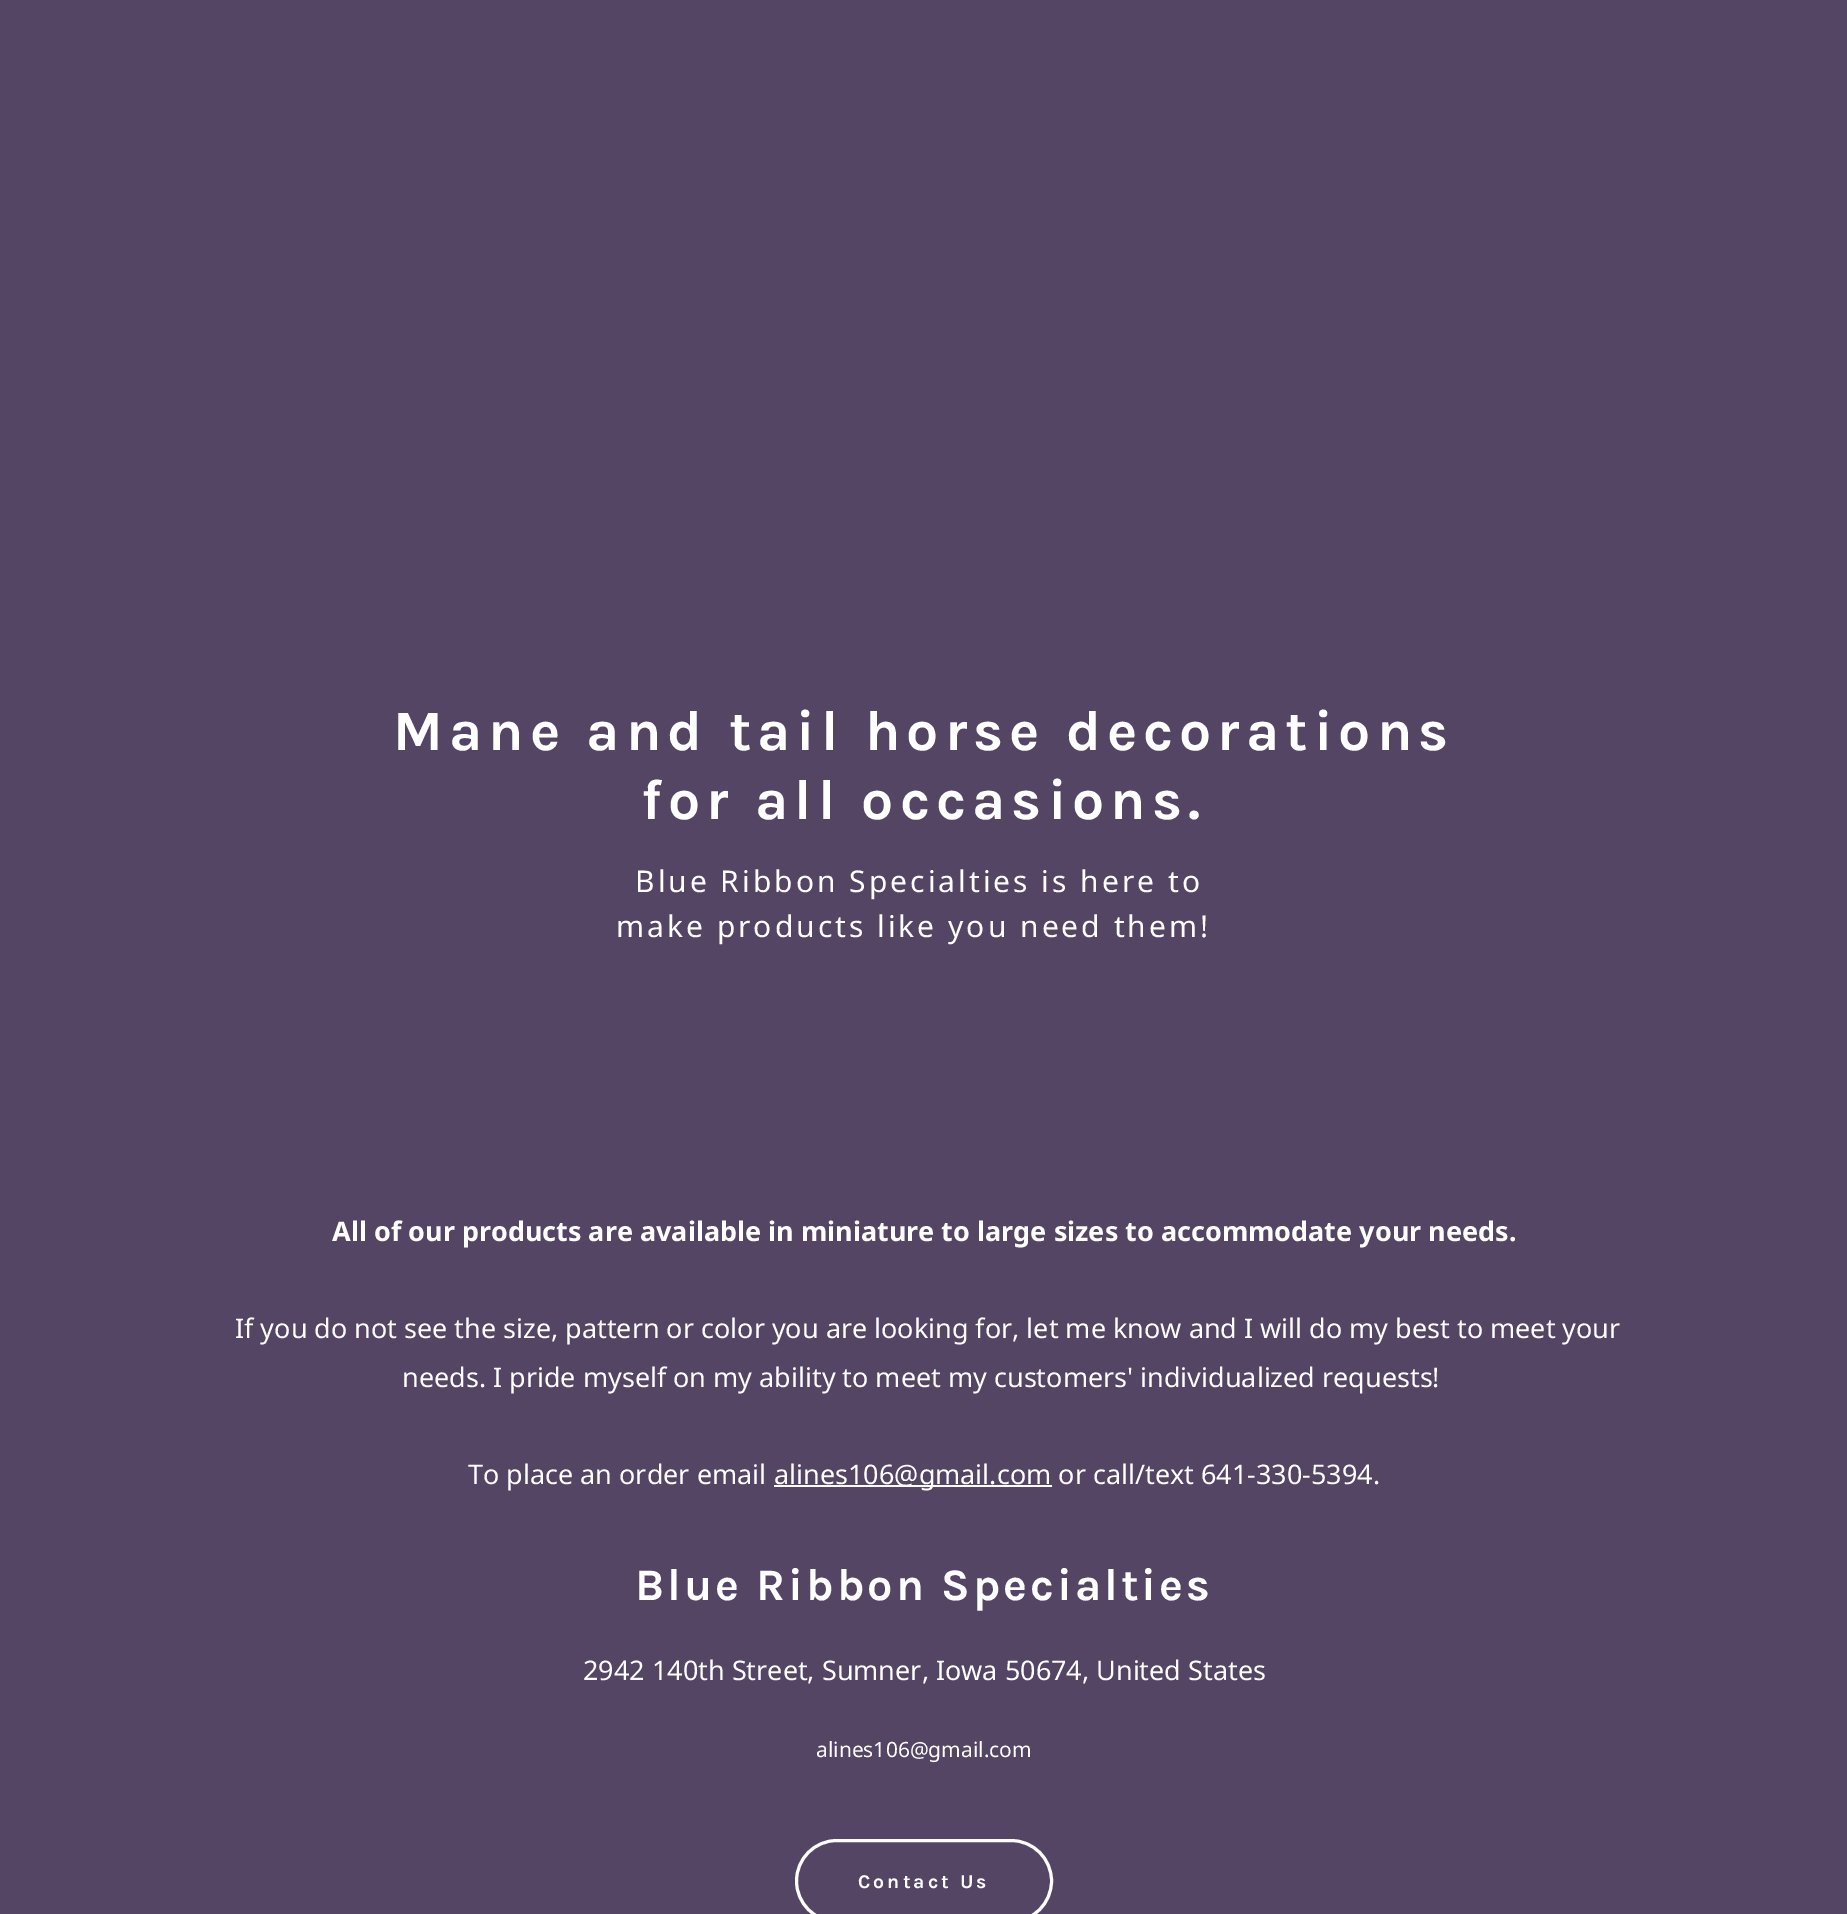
%!PS
<< /PageSize [1847 1914] >> setpagedevice
/rgb { 3 { 255 div 3 1 roll } repeat setrgbcolor } def
/font { [ exch dup neg 0 0 3 -1 roll 0 0 ] selectfont } def
/roundrect { 5 dict begin { /r /h /w /y /x } { exch def } forall
  x r add y moveto x w add y 2 copy h add r arct x w add y h add x 1 index r arct
  x y h add x y r arct x y 2 copy exch w add exch r arct closepath end } def
0 1914 translate 1 -1 scale
4 setmiterlimit
84 69 100 rgb
0 0 1847 1914 rectfill
255 255 255 rgb
774 1485 278 2 rectfill
3 setlinewidth
796.5 1840.5 255 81 40.5 roundrect stroke
/Karla-Bold 57 font
393 750 moveto 6 0 (Mane and tail horse decorations) ashow
641 819 moveto 6 0 (for all occasions.) ashow
/NotoSans-Regular 30 font
635 892 moveto 3 0 (Blue Ribbon Specialties is here to) ashow
616 937 moveto 3 0 (make products like you need them!) ashow
/NotoSans-Bold 27 font
332 1241 moveto (All of our products are available in miniature to large sizes to accommodate your needs.) show
/NotoSans-Regular 27 font
[
  [(If you do not see the size, pattern or color you are looking for, let me know and I will do my best to meet your) 235 1338]
  [(needs. I pride myself on my ability to meet my customers' individualized requests!) 402 1387]
  [(To place an order email) 468 1484]
  [(alines106@gmail.com or call/text 641-330-5394.) 774 1484]
] { aload pop moveto show } forall
/Karla-Bold 45 font
635 1600 moveto 3 0 (Blue Ribbon Specialties) ashow
/NotoSans-Regular 27 font
583 1680 moveto (2942 140th Street, Sumner, Iowa 50674, United States) show
/NotoSans-Regular 21 font
816 1757 moveto (alines106@gmail.com) show
/Karla-Bold 19.5 font
858 1888 moveto 3 0 (Contact Us) ashow
showpage
